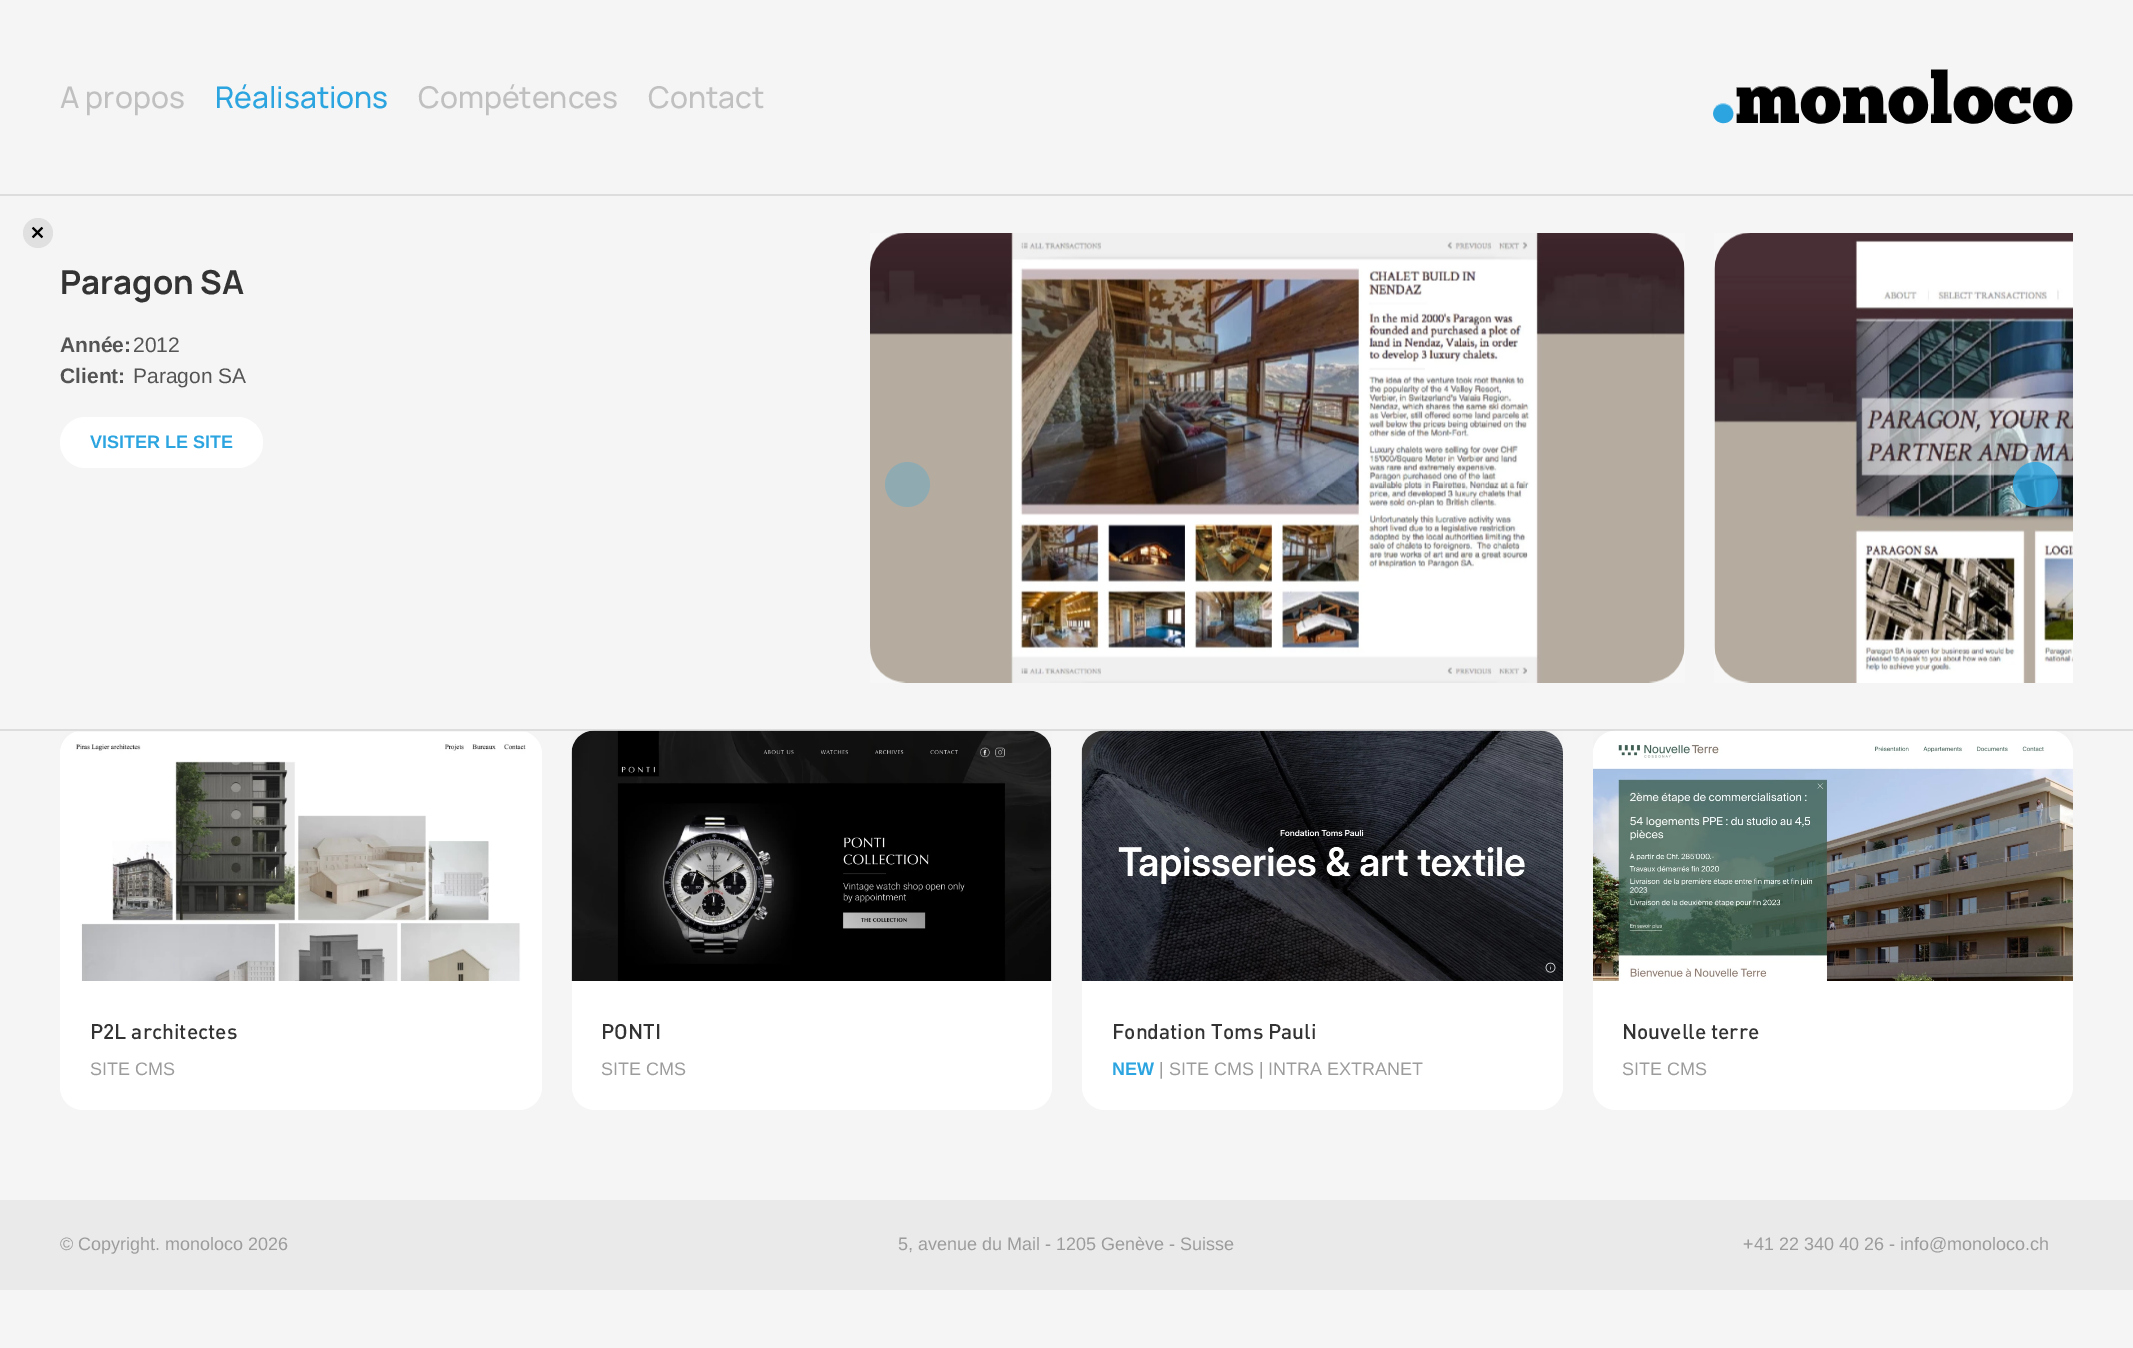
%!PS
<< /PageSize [2133 1348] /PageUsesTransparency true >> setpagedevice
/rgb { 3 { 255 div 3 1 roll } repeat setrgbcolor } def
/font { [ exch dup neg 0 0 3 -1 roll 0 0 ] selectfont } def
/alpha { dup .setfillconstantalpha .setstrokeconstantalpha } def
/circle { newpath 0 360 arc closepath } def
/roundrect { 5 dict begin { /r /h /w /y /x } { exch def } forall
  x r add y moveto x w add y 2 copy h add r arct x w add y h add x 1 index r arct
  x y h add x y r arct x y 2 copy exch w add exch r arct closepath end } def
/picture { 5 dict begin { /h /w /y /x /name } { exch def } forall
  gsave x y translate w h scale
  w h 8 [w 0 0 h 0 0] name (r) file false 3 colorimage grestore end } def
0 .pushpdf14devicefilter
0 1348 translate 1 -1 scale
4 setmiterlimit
245 245 245 rgb
0 0 2133 1348 rectfill
221 221 221 rgb
0 194 2133 2 rectfill
(img/1.rgb) 1713 69 360 55 picture
224 224 224 rgb
38 233 15 circle fill
(img/2.rgb) 31 226 13 13 picture
255 255 255 rgb
60 417 203 51 25.5 roundrect fill
(img/3.rgb) 870 233 815 450 picture
(img/4.rgb) 1714 233 359 450 picture
143 170 177 rgb
907.5 484.5 22.5 circle fill
0.8 alpha
43 164 223 rgb
2035.5 484.5 22.5 circle fill
1 alpha
221 221 221 rgb
0 729 2133 2 rectfill
255 255 255 rgb
60 731 482 379 23 roundrect fill
(img/5.rgb) 60 731 470 250 picture
572 731 480 379 23 roundrect fill
(img/6.rgb) 571 730 481 251 picture
1082 731 481 379 23 roundrect fill
(img/7.rgb) 1081 730 482 251 picture
1593 731 480 379 23 roundrect fill
(img/8.rgb) 1593 730 480 251 picture
234 234 234 rgb
0 1200 2133 90 rectfill
/Manrope-Medium 30 font
192 192 192 rgb
60 108 moveto (A propos) show
43 164 223 rgb
215 108 moveto (Réalisations) show
192 192 192 rgb
418 108 moveto (Compétences) show
648 108 moveto (Contact) show
/Manrope-Bold 33 font
51 51 51 rgb
60 294 moveto (Paragon SA) show
/LiberationSans-Bold 21 font
84 84 84 rgb
60 352 moveto (Année:) show
/LiberationSans-Regular 21 font
133 352 moveto (2012) show
/LiberationSans-Bold 21 font
60 383 moveto (Client:) show
/LiberationSans-Regular 21 font
133 383 moveto (Paragon SA) show
/LiberationSans-Bold 18 font
43 164 223 rgb
90 448 moveto (VISITER LE SITE) show
/DIN-Medium 21 font
51 51 51 rgb
90 1039 moveto (P2L architectes) show
/LiberationSans-Regular 18 font
156 156 156 rgb
90 1075 moveto (SITE CMS) show
/DIN-Medium 21 font
51 51 51 rgb
601 1039 moveto (PONTI) show
/LiberationSans-Regular 18 font
156 156 156 rgb
601 1075 moveto (SITE CMS) show
/DIN-Medium 21 font
51 51 51 rgb
1112 1039 moveto (Fondation Toms Pauli) show
/LiberationSans-Bold 18 font
43 164 223 rgb
1112 1075 moveto (NEW) show
/LiberationSans-Regular 18 font
156 156 156 rgb
1159 1075 moveto (| SITE CMS | INTRA EXTRANET) show
/DIN-Medium 21 font
51 51 51 rgb
1622 1039 moveto (Nouvelle terre) show
/LiberationSans-Regular 18 font
156 156 156 rgb
[
  [(SITE CMS) 1622 1075]
  [(© Copyright. monoloco 2026) 60 1250]
  [(5, avenue du Mail - 1205 Genève - Suisse) 898 1250]
  [(+41 22 340 40 26 - info@monoloco.ch) 1743 1250]
] { aload pop moveto show } forall
.poppdf14devicefilter showpage
